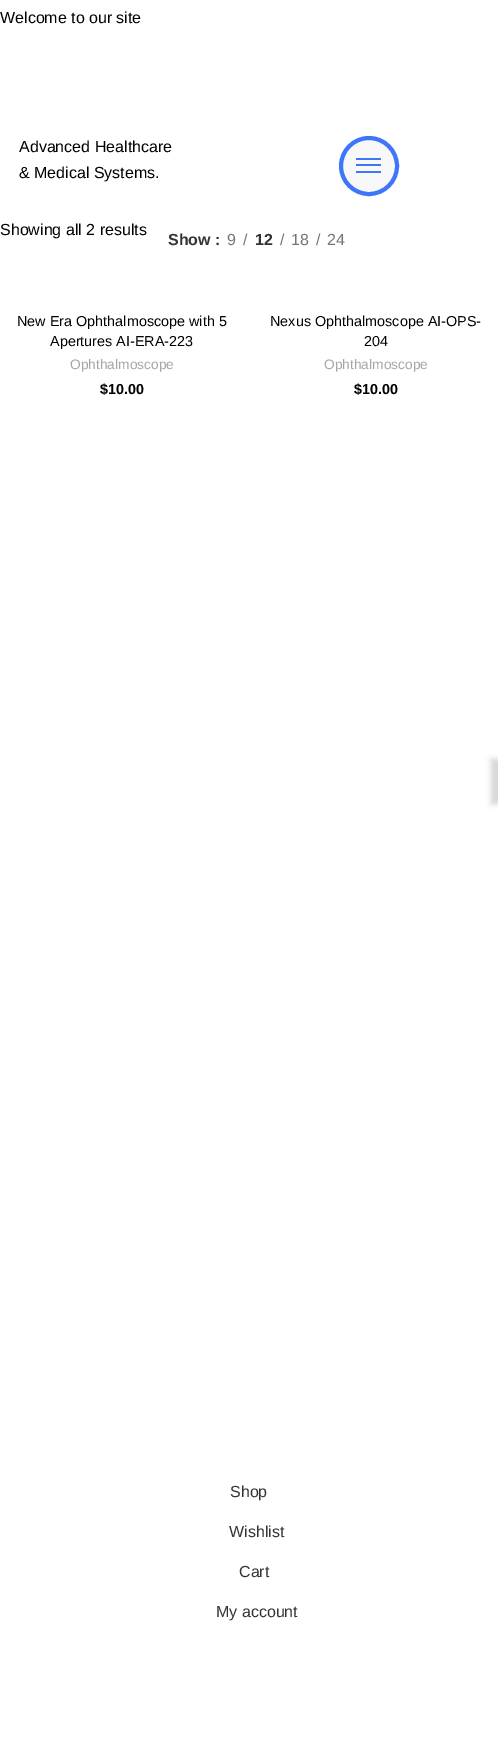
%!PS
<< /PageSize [498 1755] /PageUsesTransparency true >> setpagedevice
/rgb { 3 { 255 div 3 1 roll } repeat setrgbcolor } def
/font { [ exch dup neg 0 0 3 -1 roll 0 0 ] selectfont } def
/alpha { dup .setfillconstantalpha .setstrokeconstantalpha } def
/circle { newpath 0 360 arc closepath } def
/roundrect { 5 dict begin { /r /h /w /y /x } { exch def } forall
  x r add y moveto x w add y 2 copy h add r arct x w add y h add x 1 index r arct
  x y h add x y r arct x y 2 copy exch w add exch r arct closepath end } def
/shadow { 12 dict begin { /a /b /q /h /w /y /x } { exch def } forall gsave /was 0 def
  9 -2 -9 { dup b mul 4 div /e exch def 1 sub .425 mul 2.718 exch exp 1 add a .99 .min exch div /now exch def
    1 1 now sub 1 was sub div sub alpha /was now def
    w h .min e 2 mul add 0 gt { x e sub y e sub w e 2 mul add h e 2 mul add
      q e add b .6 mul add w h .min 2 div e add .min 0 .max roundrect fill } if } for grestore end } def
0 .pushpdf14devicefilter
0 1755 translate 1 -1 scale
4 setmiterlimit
255 255 255 rgb
0 0 498 1755 rectfill
248 248 248 rgb
369 166 28 circle gsave fill grestore
63 118 249 rgb
4 setlinewidth
stroke
[
  [356 158 25 2 63 118 249]
  [356 164 25 2 63 118 249]
  [356 171 25 2 63 118 249]
] { aload pop rgb rectfill } forall
0 0 0 rgb
491 759 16 45 0 3 0.16 shadow
/LiberationSans-Regular 16 font
[
  [(Welcome to our site) 0 23]
  [(Advanced Healthcare) 19 152]
  [(& Medical Systems.) 19 178]
  [(Showing all 2 results) 0 235]
] { aload pop moveto show } forall
/LiberationSans-Bold 16 font
51 51 51 rgb
168 245 moveto (Show :) show
/LiberationSans-Regular 16 font
118 118 118 rgb
227 245 moveto (9) show
243 245 moveto (/) show
/LiberationSans-Bold 16 font
51 51 51 rgb
255 245 moveto (12) show
/LiberationSans-Regular 16 font
118 118 118 rgb
[
  [(/) 280 245]
  [(18) 291 245]
  [(/) 316 245]
  [(24) 327 245]
] { aload pop moveto show } forall
/LiberationSans-Regular 14.4 font
0 0 0 rgb
17 326 moveto (New Era Ophthalmoscope with 5) show
50 346 moveto (Apertures AI-ERA-223) show
/LiberationSans-Regular 13.75 font
165 165 165 rgb
70 369 moveto (Ophthalmoscope) show
/LiberationSans-Bold 14.4 font
0 0 0 rgb
100 394 moveto ($10.00) show
/LiberationSans-Regular 14.4 font
270 326 moveto (Nexus Ophthalmoscope AI-OPS-) show
364 346 moveto (204) show
/LiberationSans-Regular 13.75 font
165 165 165 rgb
324 369 moveto (Ophthalmoscope) show
/LiberationSans-Bold 14.4 font
0 0 0 rgb
354 394 moveto ($10.00) show
/LiberationSans-Regular 16 font
51 51 51 rgb
[
  [(Shop) 230 1497]
  [(Wishlist) 229 1537]
  [(Cart) 239 1577]
  [(My account) 216 1617]
] { aload pop moveto show } forall
.poppdf14devicefilter showpage
